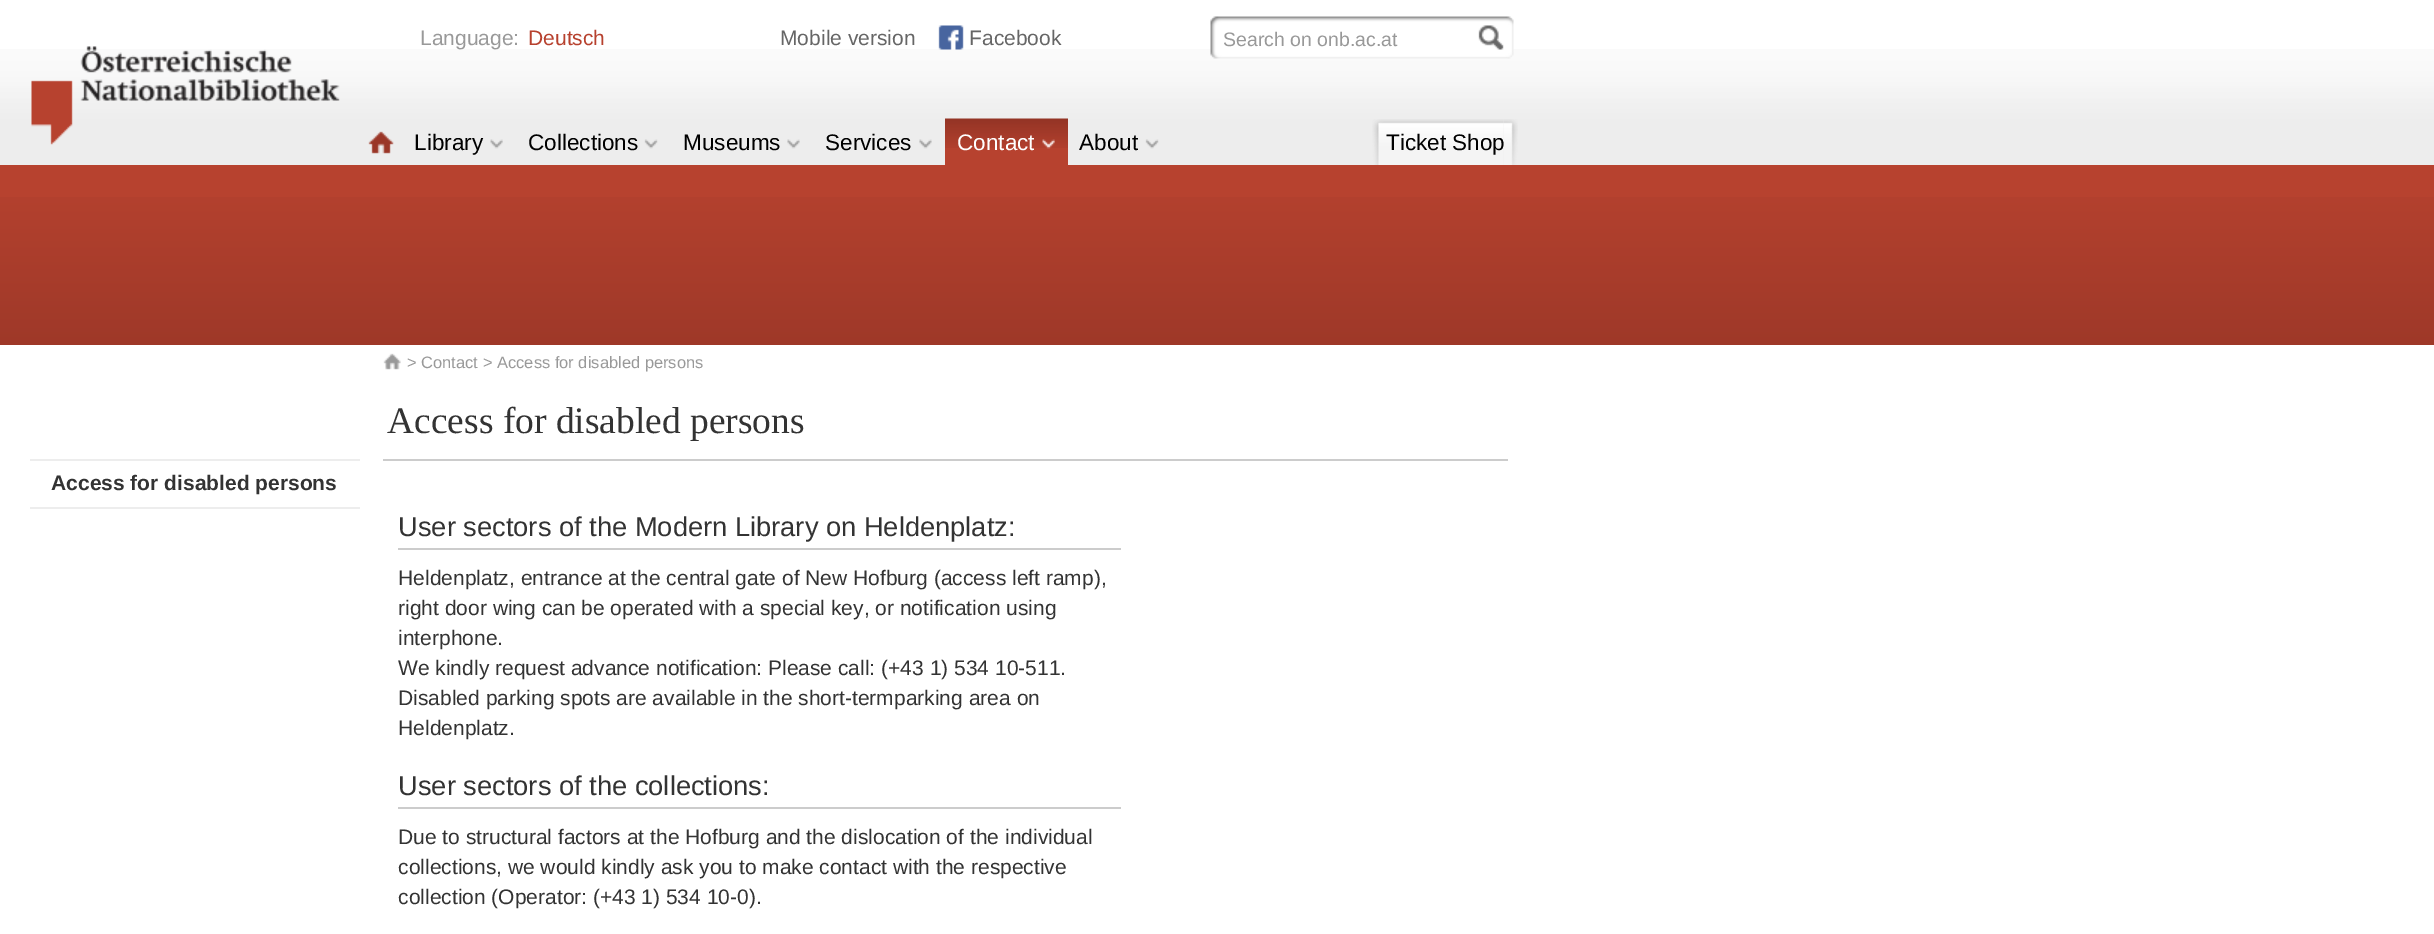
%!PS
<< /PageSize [2434 934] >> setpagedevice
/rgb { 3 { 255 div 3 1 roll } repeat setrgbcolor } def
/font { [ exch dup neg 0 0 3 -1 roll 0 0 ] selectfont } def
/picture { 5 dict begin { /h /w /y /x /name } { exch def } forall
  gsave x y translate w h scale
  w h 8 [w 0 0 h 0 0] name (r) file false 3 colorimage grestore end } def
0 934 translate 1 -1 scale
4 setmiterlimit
255 255 255 rgb
0 0 2434 934 rectfill
(img/1.rgb) 0 49 2434 116 picture
(img/2.rgb) 938 25 26 25 picture
(img/3.rgb) 1210 16 304 43 picture
(img/4.rgb) 1478 25 26 25 picture
(img/5.rgb) 31 46 309 99 picture
(img/6.rgb) 368 131 26 23 picture
(img/7.rgb) 490 139 13 10 picture
(img/8.rgb) 644 139 14 10 picture
(img/9.rgb) 787 139 13 10 picture
(img/9.rgb) 919 139 13 10 picture
183 66 47 rgb
945 148 123 17 rectfill
(img/10.rgb) 945 118 123 30 picture
(img/11.rgb) 1042 139 13 10 picture
(img/8.rgb) 1145 139 14 10 picture
(img/12.rgb) 1372 119 131 46 picture
(img/13.rgb) 1503 119 15 46 picture
0 165 2434 32 rectfill
(img/14.rgb) 0 197 2434 148 picture
(img/15.rgb) 383 353 18 17 picture
[
  [30 459 330 2 237 237 237]
  [30 507 330 2 237 237 237]
  [383 459 1125 2 204 204 204]
  [398 548 723 2 204 204 204]
  [398 807 723 2 204 204 204]
] { aload pop rgb rectfill } forall
/LiberationSans-Regular 21 font
153 153 153 rgb
420 45 moveto (Language:) show
183 65 46 rgb
528 45 moveto (Deutsch) show
102 102 102 rgb
780 45 moveto (Mobile version) show
969 45 moveto (Facebook) show
/LiberationSans-Regular 19.5 font
153 153 153 rgb
1223 46 moveto (Search on onb.ac.at) show
/LiberationSans-Regular 22.5 font
0 0 0 rgb
[
  [(Library) 414 150]
  [(Collections) 528 150]
  [(Museums) 683 150]
  [(Services) 825 150]
] { aload pop moveto show } forall
255 255 255 rgb
957 150 moveto (Contact) show
0 0 0 rgb
1079 150 moveto (About) show
1386 150 moveto (Ticket Shop) show
/LiberationSans-Regular 16.5 font
153 153 153 rgb
407 368 moveto (> Contact > Access for disabled persons) show
/LiberationSans-Bold 21 font
51 51 51 rgb
51 490 moveto (Access for disabled persons) show
/LiberationSerif-Regular 37.5 font
387 433 moveto (Access for disabled persons) show
/LiberationSans-Regular 27.3 font
398 536 moveto (User sectors of the Modern Library on Heldenplatz:) show
/LiberationSans-Regular 21 font
[
  [(Heldenplatz, entrance at the central gate of New Hofburg \(access left ramp\),) 398 585]
  [(right door wing can be operated with a special key, or notification using) 398 615]
  [(interphone.) 398 645]
  [(We kindly request advance notification: Please call: \(+43 1\) 534 10-511.) 398 675]
  [(Disabled parking spots are available in the short-termparking area on) 398 705]
  [(Heldenplatz.) 398 735]
] { aload pop moveto show } forall
/LiberationSans-Regular 27.3 font
398 795 moveto (User sectors of the collections:) show
/LiberationSans-Regular 21 font
[
  [(Due to structural factors at the Hofburg and the dislocation of the individual) 398 844]
  [(collections, we would kindly ask you to make contact with the respective) 398 874]
  [(collection \(Operator: \(+43 1\) 534 10-0\).) 398 904]
] { aload pop moveto show } forall
showpage
